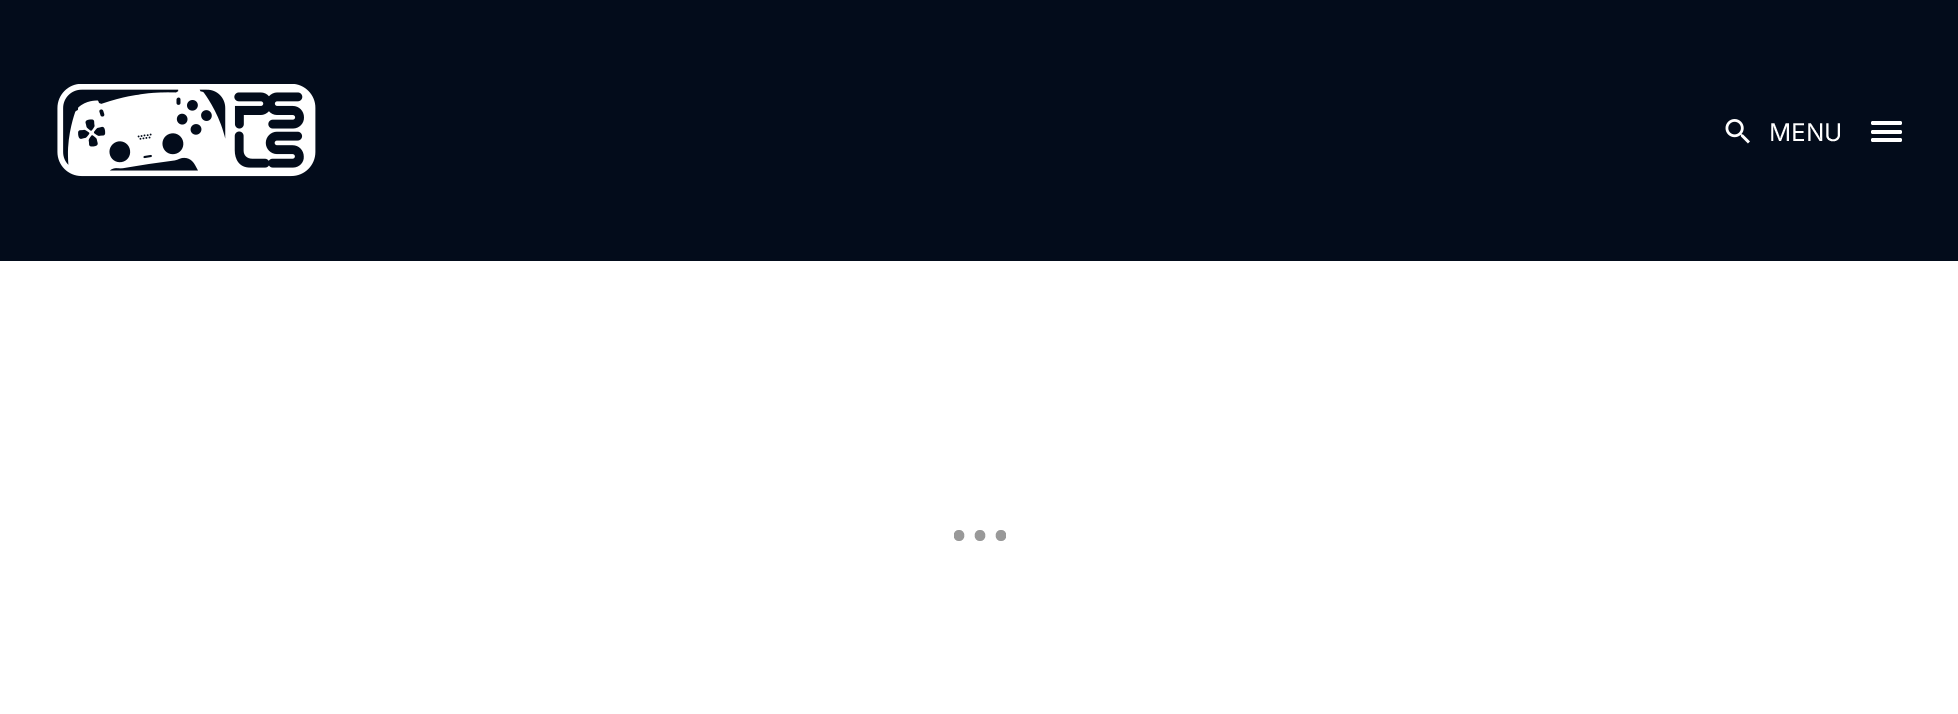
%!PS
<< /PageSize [1958 714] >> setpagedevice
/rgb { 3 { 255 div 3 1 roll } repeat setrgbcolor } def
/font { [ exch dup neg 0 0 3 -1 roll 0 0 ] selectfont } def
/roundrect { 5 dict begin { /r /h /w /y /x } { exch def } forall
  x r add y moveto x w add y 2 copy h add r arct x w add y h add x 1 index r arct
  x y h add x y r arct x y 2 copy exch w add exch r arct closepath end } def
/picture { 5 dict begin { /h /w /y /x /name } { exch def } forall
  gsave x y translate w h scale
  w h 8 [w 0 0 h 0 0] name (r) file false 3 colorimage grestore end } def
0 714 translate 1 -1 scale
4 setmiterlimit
255 255 255 rgb
0 0 1958 714 rectfill
3 12 27 rgb
0 0 1958 261 rectfill
(img/1.rgb) 57 84 259 93 picture
(img/2.rgb) 1725 119 25 25 picture
255 255 255 rgb
1871 121 31 4 2 roundrect fill
1871 130 31 4 2 roundrect fill
1871 138 31 4 2 roundrect fill
gsave
954 530 52 11 rectclip
153 153 153 rgb
959 530 moveto 966 530 966 541 959 541 curveto 952 541 952 530 959 530 curveto closepath 980 530 moveto 987 530 987 541 980 541 curveto 973 541 973 530 980 530 curveto closepath 1001 530 moveto 1008 530 1008 541 1001 541 curveto 994 541 994 530 1001 530 curveto closepath eofill
grestore
/Inter-Regular 24.5 font
1769 141 moveto (MENU) show
showpage
